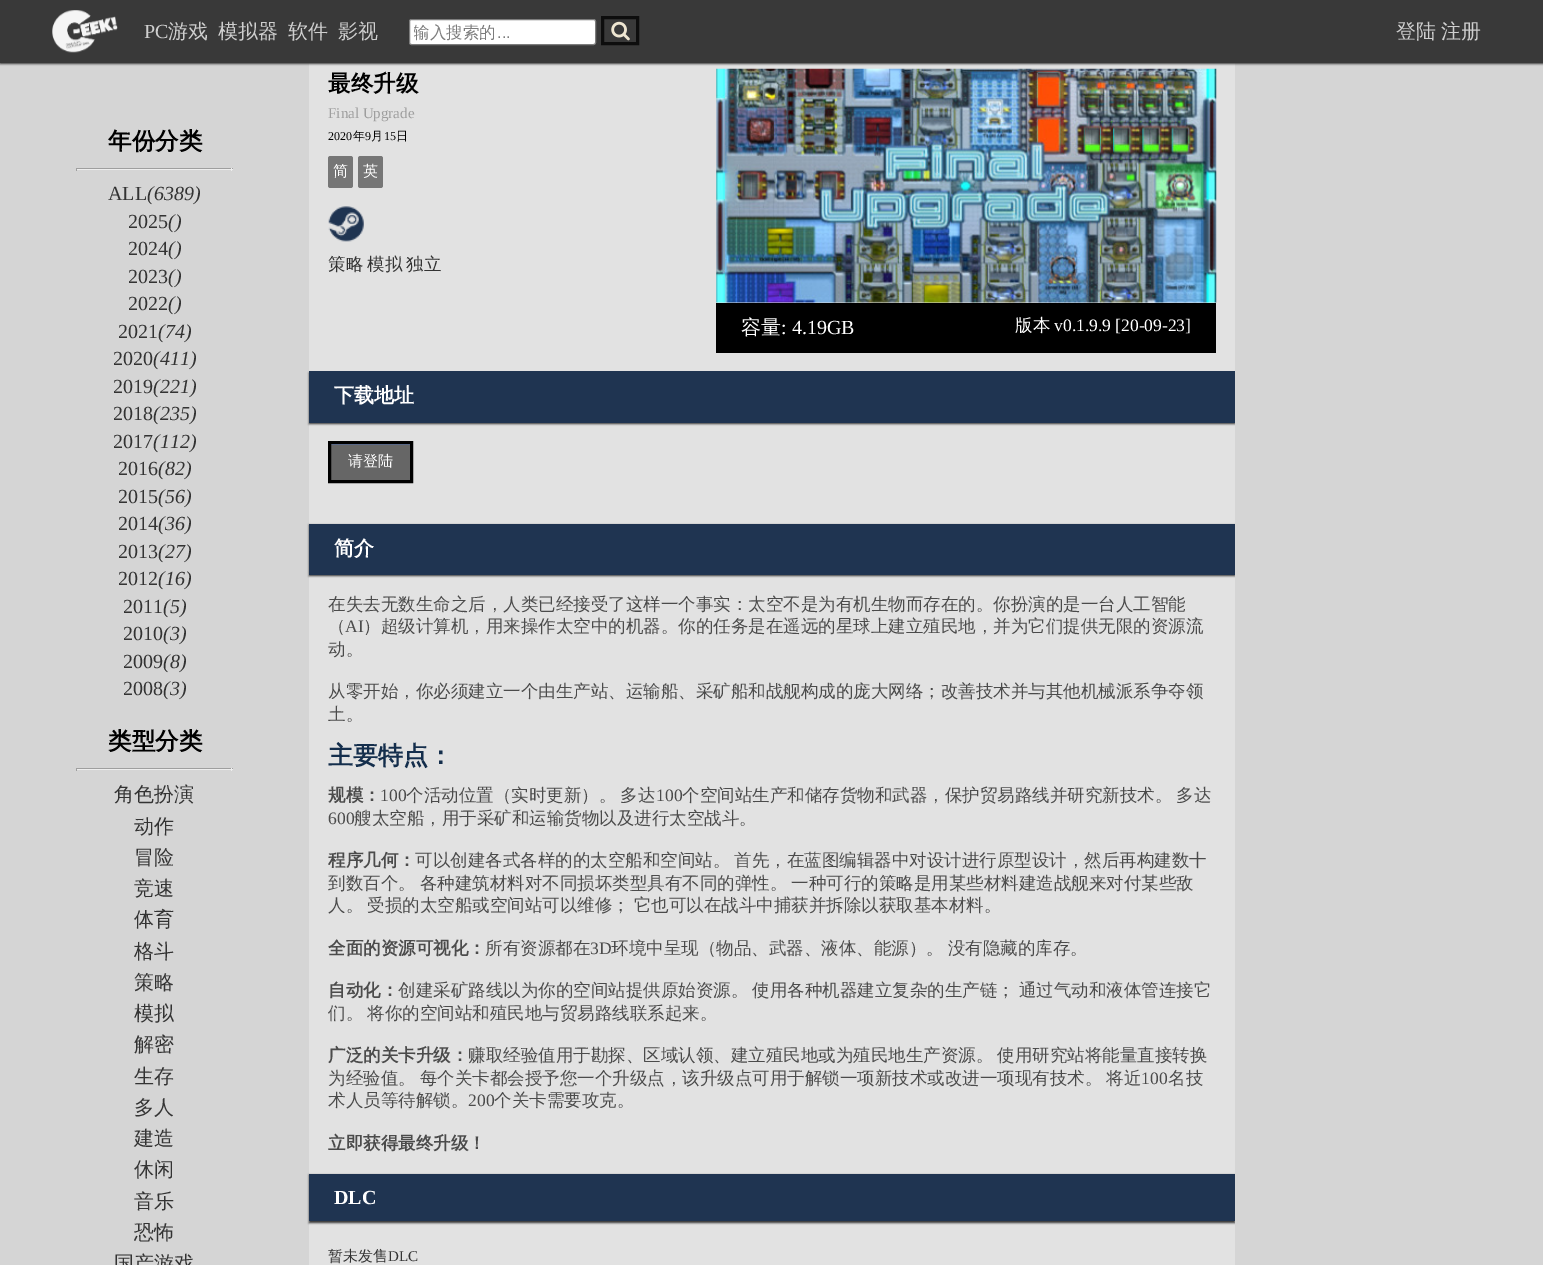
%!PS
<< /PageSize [1543 1265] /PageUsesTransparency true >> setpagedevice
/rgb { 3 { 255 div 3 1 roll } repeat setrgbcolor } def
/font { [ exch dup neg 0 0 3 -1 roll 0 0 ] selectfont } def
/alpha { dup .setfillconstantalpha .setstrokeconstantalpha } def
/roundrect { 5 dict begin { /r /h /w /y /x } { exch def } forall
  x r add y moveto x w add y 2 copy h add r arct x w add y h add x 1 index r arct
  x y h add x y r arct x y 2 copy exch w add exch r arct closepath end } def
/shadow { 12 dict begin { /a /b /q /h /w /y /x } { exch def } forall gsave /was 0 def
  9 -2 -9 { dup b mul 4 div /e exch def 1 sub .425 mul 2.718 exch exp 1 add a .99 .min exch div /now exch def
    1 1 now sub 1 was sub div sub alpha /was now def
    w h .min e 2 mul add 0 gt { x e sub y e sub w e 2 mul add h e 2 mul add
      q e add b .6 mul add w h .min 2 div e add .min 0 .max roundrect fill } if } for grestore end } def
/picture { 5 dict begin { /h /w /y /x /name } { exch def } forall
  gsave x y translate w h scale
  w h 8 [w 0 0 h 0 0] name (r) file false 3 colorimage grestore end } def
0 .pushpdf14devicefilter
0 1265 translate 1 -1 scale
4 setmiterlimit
213 213 213 rgb
0 0 1543 1265 rectfill
226 226 226 rgb
309 63 926 1202 rectfill
51 51 51 rgb
0 1 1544 63 0 1 0.95 shadow
57 57 57 rgb
0 0 1543 63 rectfill
(img/1.rgb) 52 10 66 43 picture
255 255 255 rgb
409.5 19.5 186 25 2 roundrect gsave fill grestore
125 125 125 rgb
stroke
13 13 13 rgb
3 setlinewidth
602.5 17.5 35 26 rectstroke
(img/2.rgb) 611 21 19 20 picture
[
  [76 168 157 1 159 159 159]
  [231 168 1 3 238 238 238]
  [76 169 157 1 238 238 238]
  [76 168 1 3 159 159 159]
  [76 768 157 1 159 159 159]
  [231 768 1 3 238 238 238]
  [76 769 157 1 238 238 238]
  [76 768 1 3 159 159 159]
] { aload pop rgb rectfill } forall
118 118 118 rgb
328 156 25 32 2.5 roundrect fill
358 156 25 32 2.5 roundrect fill
(img/3.rgb) 328 206 36 36 picture
(img/4.rgb) 716 68 501 235 picture
0 0 0 rgb
716 303 500 50 rectfill
51 51 51 rgb
309 373 926 51 0 1 1 shadow
[
  [309 371 926 52 31 52 81]
  [331 445 79 35 102 102 102]
  [330 444 80 1 122 142 185]
] { aload pop rgb rectfill } forall
0 0 0 rgb
329.5 442.5 82 39 rectstroke
51 51 51 rgb
309 525 926 51 0 1 1 shadow
31 52 81 rgb
309 524 926 51 rectfill
51 51 51 rgb
309 1175 926 48 0 1 1 shadow
31 52 81 rgb
309 1174 926 47 rectfill
213 213 213 rgb
1235 371 2 854 rectfill
/LiberationSerif-Regular 20 font
207 207 207 rgb
144 38 moveto (PC) show
/WenQuanYiZenHei-Medium 20 font
[
  [(游戏) 168 38]
  [(模拟器) 218 38]
  [(软件) 288 38]
  [(影视) 338 38]
] { aload pop moveto show } forall
gsave
414 21 161 22 rectclip
/WenQuanYiZenHei-Medium 16.5 font
124 124 124 rgb
413 38 moveto (输入搜索的) show
grestore
/LiberationSans-Regular 16.5 font
124 124 124 rgb
497 38 moveto (...) show
/WenQuanYiZenHei-Medium 20 font
207 207 207 rgb
1396 38 moveto (登陆) show
1441 38 moveto (注册) show
/WenQuanYiZenHei-Bold 23.5 font
0 0 0 rgb
108 149 moveto (年份分类) show
/LiberationSerif-Regular 20 font
51 51 51 rgb
108 200 moveto (ALL) show
/LiberationSerif-Italic 20 font
147 200 moveto (\(6389\)) show
/LiberationSerif-Regular 20 font
128 228 moveto (2025) show
/LiberationSerif-Italic 20 font
168 228 moveto (\(\)) show
/LiberationSerif-Regular 20 font
128 255 moveto (2024) show
/LiberationSerif-Italic 20 font
168 255 moveto (\(\)) show
/LiberationSerif-Regular 20 font
128 283 moveto (2023) show
/LiberationSerif-Italic 20 font
168 283 moveto (\(\)) show
/LiberationSerif-Regular 20 font
128 310 moveto (2022) show
/LiberationSerif-Italic 20 font
168 310 moveto (\(\)) show
/LiberationSerif-Regular 20 font
118 338 moveto (2021) show
/LiberationSerif-Italic 20 font
158 338 moveto (\(74\)) show
/LiberationSerif-Regular 20 font
113 365 moveto (2020) show
/LiberationSerif-Italic 20 font
153 365 moveto (\(411\)) show
/LiberationSerif-Regular 20 font
113 393 moveto (2019) show
/LiberationSerif-Italic 20 font
153 393 moveto (\(221\)) show
/LiberationSerif-Regular 20 font
113 420 moveto (2018) show
/LiberationSerif-Italic 20 font
153 420 moveto (\(235\)) show
/LiberationSerif-Regular 20 font
113 448 moveto (2017) show
/LiberationSerif-Italic 20 font
153 448 moveto (\(112\)) show
/LiberationSerif-Regular 20 font
118 475 moveto (2016) show
/LiberationSerif-Italic 20 font
158 475 moveto (\(82\)) show
/LiberationSerif-Regular 20 font
118 503 moveto (2015) show
/LiberationSerif-Italic 20 font
158 503 moveto (\(56\)) show
/LiberationSerif-Regular 20 font
118 530 moveto (2014) show
/LiberationSerif-Italic 20 font
158 530 moveto (\(36\)) show
/LiberationSerif-Regular 20 font
118 558 moveto (2013) show
/LiberationSerif-Italic 20 font
158 558 moveto (\(27\)) show
/LiberationSerif-Regular 20 font
118 585 moveto (2012) show
/LiberationSerif-Italic 20 font
158 585 moveto (\(16\)) show
/LiberationSerif-Regular 20 font
123 613 moveto (2011) show
/LiberationSerif-Italic 20 font
163 613 moveto (\(5\)) show
/LiberationSerif-Regular 20 font
123 640 moveto (2010) show
/LiberationSerif-Italic 20 font
163 640 moveto (\(3\)) show
/LiberationSerif-Regular 20 font
123 668 moveto (2009) show
/LiberationSerif-Italic 20 font
163 668 moveto (\(8\)) show
/LiberationSerif-Regular 20 font
123 695 moveto (2008) show
/LiberationSerif-Italic 20 font
163 695 moveto (\(3\)) show
/WenQuanYiZenHei-Bold 23.5 font
0 0 0 rgb
108 749 moveto (类型分类) show
/WenQuanYiZenHei-Medium 20 font
51 51 51 rgb
[
  [(角色扮演) 114 801]
  [(动作) 134 833]
  [(冒险) 134 864]
  [(竞速) 134 895]
  [(体育) 134 926]
  [(格斗) 134 958]
  [(策略) 134 989]
  [(模拟) 134 1020]
  [(解密) 134 1051]
  [(生存) 134 1083]
  [(多人) 134 1114]
  [(建造) 134 1145]
  [(休闲) 134 1176]
  [(音乐) 134 1208]
  [(恐怖) 134 1239]
  [(国产游戏) 114 1270]
] { aload pop moveto show } forall
/WenQuanYiZenHei-Bold 22.5 font
0 0 0 rgb
328 91 moveto (最终升级) show
/LiberationSerif-Regular 15 font
158 158 158 rgb
328 118 moveto (Final Upgrade) show
/LiberationSerif-Regular 12 font
0 0 0 rgb
328 140 moveto (2020) show
/WenQuanYiZenHei-Medium 12 font
353 140 moveto (年) show
/LiberationSerif-Regular 12 font
365 140 moveto (9) show
/WenQuanYiZenHei-Medium 12 font
371 140 moveto (月) show
/LiberationSerif-Regular 12 font
384 140 moveto (15) show
/WenQuanYiZenHei-Medium 12 font
396 140 moveto (日) show
/WenQuanYiZenHei-Medium 15 font
255 255 255 rgb
333 176 moveto (简) show
363 176 moveto (英) show
/WenQuanYiZenHei-Medium 17.5 font
51 51 51 rgb
[
  [(策略) 328 270]
  [(模拟) 367 270]
  [(独立) 406 270]
] { aload pop moveto show } forall
/WenQuanYiZenHei-Medium 20 font
255 255 255 rgb
741 334 moveto (容量) show
/LiberationSerif-Regular 20 font
781 334 moveto (: 4.19GB) show
/WenQuanYiZenHei-Medium 17.5 font
1015 331 moveto (版本) show
/LiberationSerif-Regular 17.5 font
1054 331 moveto (v0.1.9.9 [20-09-23]) show
/WenQuanYiZenHei-Bold 20 font
334 402 moveto (下载地址) show
/WenQuanYiZenHei-Medium 15 font
348 466 moveto (请登陆) show
/WenQuanYiZenHei-Bold 20 font
334 555 moveto (简介) show
/WenQuanYiZenHei-Medium 17.5 font
75 75 75 rgb
328 610 moveto (在失去无数生命之后，人类已经接受了这样一个事实：太空不是为有机生物而存在的。你扮演的是一台人工智能) show
328 632 moveto (（) show
/LiberationSerif-Regular 17.5 font
345 632 moveto (AI) show
/WenQuanYiZenHei-Medium 17.5 font
[
  [(）超级计算机，用来操作太空中的机器。你的任务是在遥远的星球上建立殖民地，并为它们提供无限的资源流) 363 632]
  [(动。) 328 655]
  [(从零开始，你必须建立一个由生产站、运输船、采矿船和战舰构成的庞大网络；改善技术并与其他机械派系争夺领) 328 697]
  [(土。) 328 720]
] { aload pop moveto show } forall
/WenQuanYiZenHei-Bold 25 font
20 46 76 rgb
328 764 moveto (主要特点：) show
/WenQuanYiZenHei-Bold 17.5 font
75 75 75 rgb
328 801 moveto (规模：) show
/LiberationSerif-Regular 17.5 font
380 801 moveto (100) show
/WenQuanYiZenHei-Medium 17.5 font
406 801 moveto -1 0 32 (个活动位置（实时更新）。 多达) widthshow
/LiberationSerif-Regular 17.5 font
656 801 moveto (100) show
/WenQuanYiZenHei-Medium 17.5 font
682 801 moveto -1 0 32 (个空间站生产和储存货物和武器，保护贸易路线并研究新技术。 多达) widthshow
/LiberationSerif-Regular 17.5 font
328 824 moveto (600) show
/WenQuanYiZenHei-Medium 17.5 font
354 824 moveto (艘太空船，用于采矿和运输货物以及进行太空战斗。) show
/WenQuanYiZenHei-Bold 17.5 font
328 866 moveto (程序几何：) show
/WenQuanYiZenHei-Medium 17.5 font
415 866 moveto -1 0 32 (可以创建各式各样的的太空船和空间站。 首先，在蓝图编辑器中对设计进行原型设计，然后再构建数十) widthshow
328 889 moveto -1 0 32 (到数百个。 各种建筑材料对不同损坏类型具有不同的弹性。 一种可行的策略是用某些材料建造战舰来对付某些敌) widthshow
328 911 moveto -1 0 32 (人。 受损的太空船或空间站可以维修； 它也可以在战斗中捕获并拆除以获取基本材料。) widthshow
/WenQuanYiZenHei-Bold 17.5 font
328 954 moveto (全面的资源可视化：) show
/WenQuanYiZenHei-Medium 17.5 font
485 954 moveto (所有资源都在) show
/LiberationSerif-Regular 17.5 font
590 954 moveto (3D) show
/WenQuanYiZenHei-Medium 17.5 font
611 954 moveto -1 0 32 (环境中呈现（物品、武器、液体、能源）。 没有隐藏的库存。) widthshow
/WenQuanYiZenHei-Bold 17.5 font
328 996 moveto (自动化：) show
/WenQuanYiZenHei-Medium 17.5 font
398 996 moveto -1 0 32 (创建采矿路线以为你的空间站提供原始资源。 使用各种机器建立复杂的生产链； 通过气动和液体管连接它) widthshow
328 1019 moveto -1 0 32 (们。 将你的空间站和殖民地与贸易路线联系起来。) widthshow
/WenQuanYiZenHei-Bold 17.5 font
328 1061 moveto (广泛的关卡升级：) show
/WenQuanYiZenHei-Medium 17.5 font
468 1061 moveto -1 0 32 (赚取经验值用于勘探、区域认领、建立殖民地或为殖民地生产资源。 使用研究站将能量直接转换) widthshow
328 1084 moveto -1 0 32 (为经验值。 每个关卡都会授予您一个升级点，该升级点可用于解锁一项新技术或改进一项现有技术。 将近) widthshow
/LiberationSerif-Regular 17.5 font
1141 1084 moveto (100) show
/WenQuanYiZenHei-Medium 17.5 font
1168 1084 moveto (名技) show
328 1106 moveto (术人员等待解锁。) show
/LiberationSerif-Regular 17.5 font
468 1106 moveto (200) show
/WenQuanYiZenHei-Medium 17.5 font
494 1106 moveto (个关卡需要攻克。) show
/WenQuanYiZenHei-Bold 17.5 font
328 1149 moveto (立即获得最终升级！) show
/LiberationSerif-Bold 20 font
255 255 255 rgb
334 1204 moveto (DLC) show
/WenQuanYiZenHei-Medium 15 font
51 51 51 rgb
328 1261 moveto (暂未发售) show
/LiberationSerif-Regular 15 font
388 1261 moveto (DLC) show
.poppdf14devicefilter showpage
